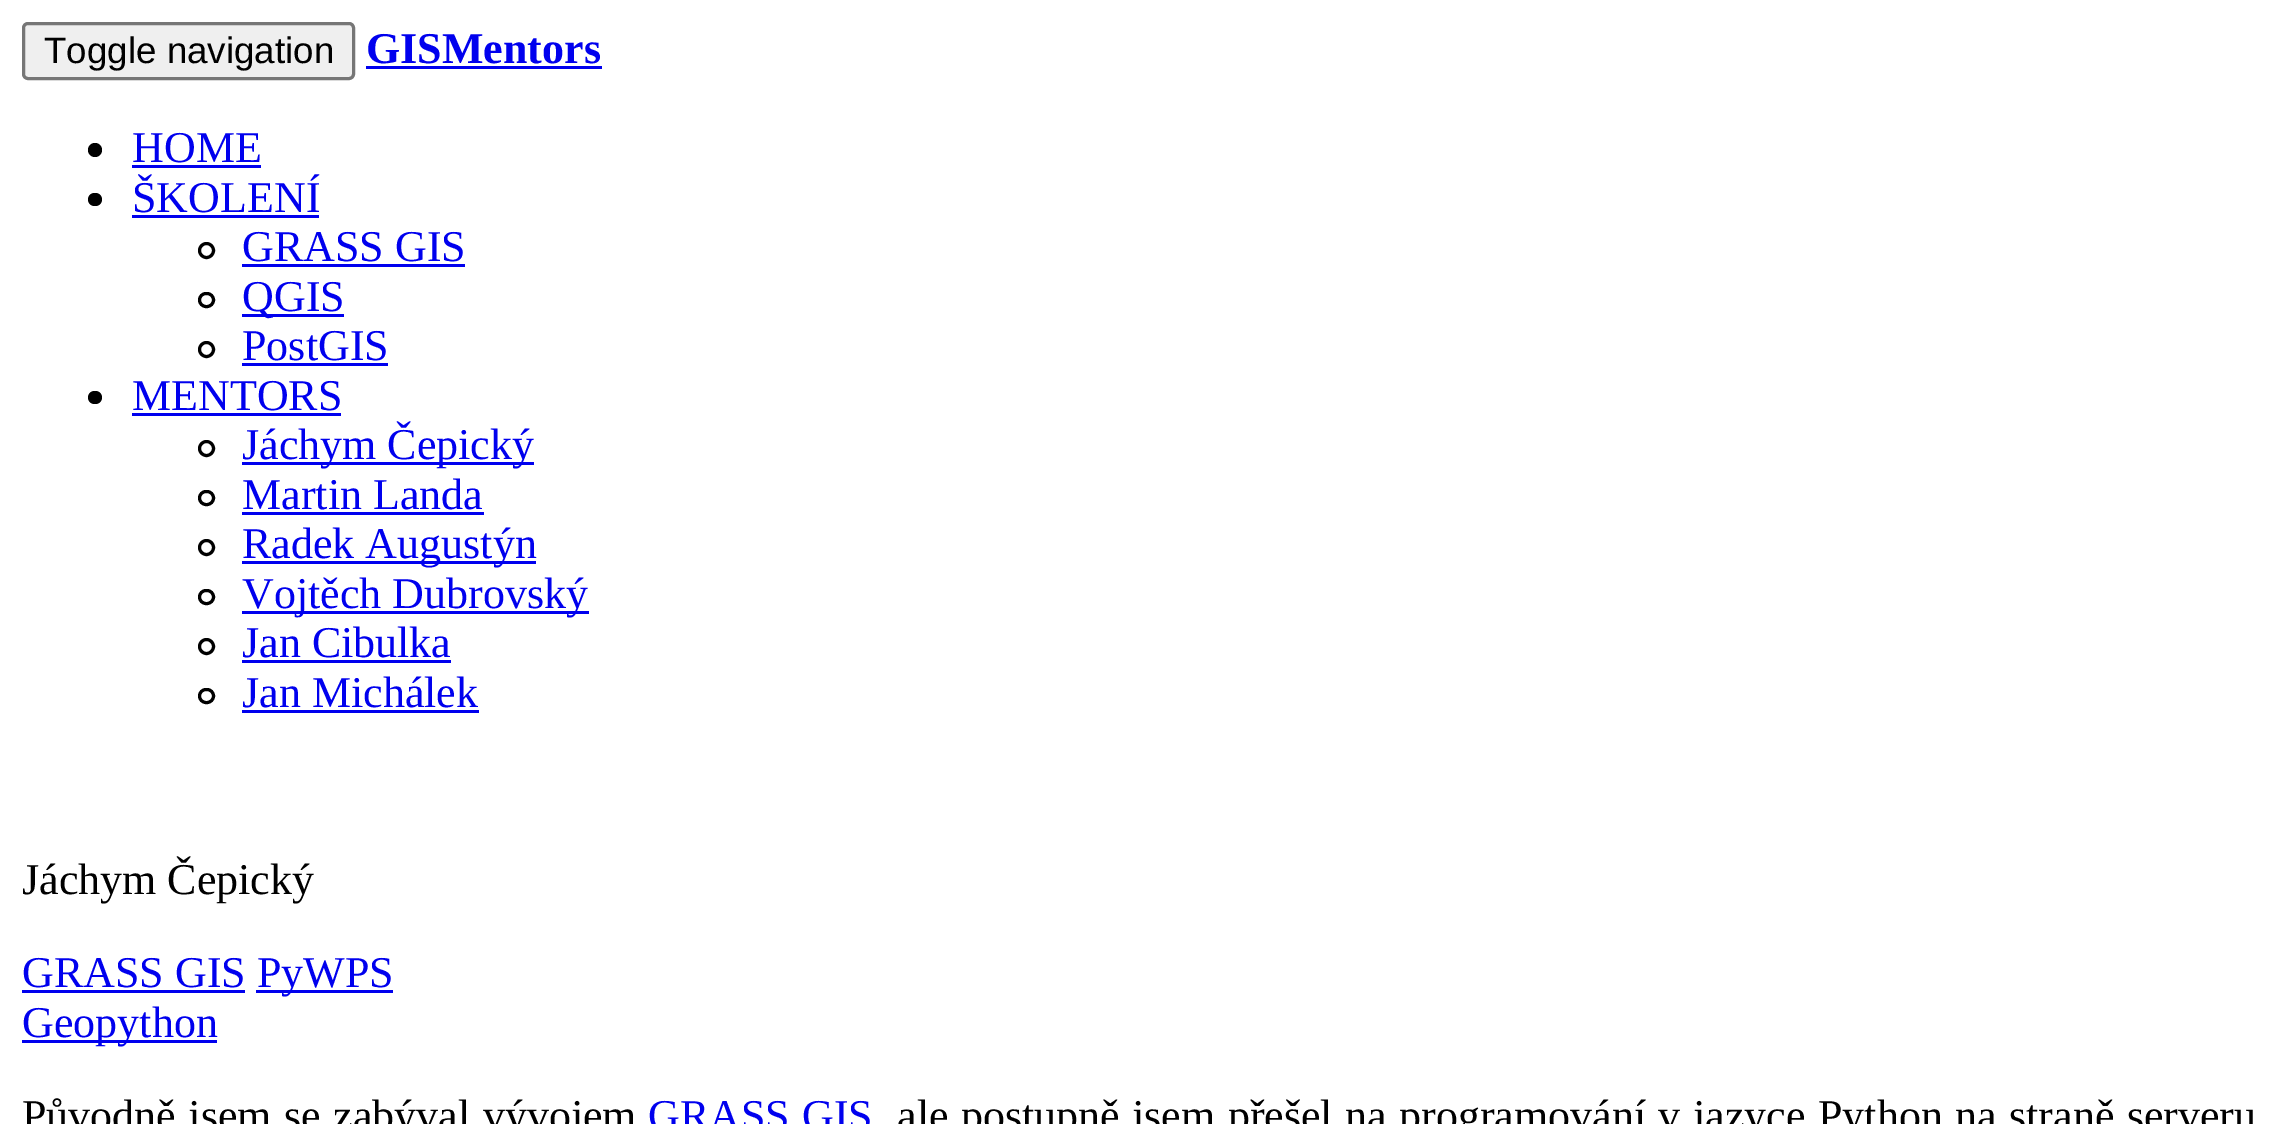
%!PS
<< /PageSize [2277 1124] >> setpagedevice
/rgb { 3 { 255 div 3 1 roll } repeat setrgbcolor } def
/font { [ exch dup neg 0 0 3 -1 roll 0 0 ] selectfont } def
/circle { newpath 0 360 arc closepath } def
/roundrect { 5 dict begin { /r /h /w /y /x } { exch def } forall
  x r add y moveto x w add y 2 copy h add r arct x w add y h add x 1 index r arct
  x y h add x y r arct x y 2 copy exch w add exch r arct closepath end } def
0 1124 translate 1 -1 scale
4 setmiterlimit
255 255 255 rgb
0 0 2277 1124 rectfill
239 239 239 rgb
23.5 23.5 330 55 4.5 roundrect gsave fill grestore
118 118 118 rgb
3 setlinewidth
stroke
0 0 238 rgb
366 66 236 3 rectfill
0 0 0 rgb
95 150 7 circle fill
0 0 238 rgb
132 165 129 3 rectfill
0 0 0 rgb
88 193 14 13 6.5 roundrect fill
0 0 238 rgb
132 215 187 3 rectfill
0 0 0 rgb
206.5 250.5 7 circle stroke
0 0 238 rgb
242 264 223 3 rectfill
0 0 0 rgb
199.5 293.5 14 13 6.5 roundrect stroke
0 0 238 rgb
242 314 102 3 rectfill
0 0 0 rgb
206.5 349.5 7 circle stroke
0 0 238 rgb
242 363 146 3 rectfill
0 0 0 rgb
88 391 14 13 6.5 roundrect fill
0 0 238 rgb
132 413 209 3 rectfill
0 0 0 rgb
206.5 448.5 7 circle stroke
0 0 238 rgb
242 462 292 3 rectfill
0 0 0 rgb
199.5 491.5 14 13 6.5 roundrect stroke
0 0 238 rgb
242 512 242 3 rectfill
0 0 0 rgb
206.5 547.5 7 circle stroke
0 0 238 rgb
242 561 294 3 rectfill
0 0 0 rgb
199.5 590.5 14 13 6.5 roundrect stroke
0 0 238 rgb
242 611 347 3 rectfill
0 0 0 rgb
206.5 646.5 7 circle stroke
0 0 238 rgb
242 660 209 3 rectfill
0 0 0 rgb
199.5 689.5 14 13 6.5 roundrect stroke
[
  [242 710 237 3 0 0 238]
  [22 990 223 3 0 0 238]
  [256 990 137 3 0 0 238]
  [22 1040 195 3 0 0 238]
] { aload pop rgb rectfill } forall
/LiberationSans-Regular 36.75 font
0 0 0 rgb
44 63 moveto (Toggle navigation) show
/LiberationSerif-Bold 44 font
0 0 238 rgb
366 63 moveto (GISMentors) show
/LiberationSerif-Regular 44 font
[
  [(HOME) 132 162]
  [(ŠKOLENÍ) 132 212]
  [(GRASS GIS) 242 261]
  [(QGIS) 242 311]
  [(PostGIS) 242 360]
  [(MENTORS) 132 410]
  [(Jáchym Čepický) 242 459]
  [(Martin Landa) 242 509]
  [(Radek Augustýn) 242 558]
  [(Vojtěch Dubrovský) 242 608]
  [(Jan Cibulka) 242 657]
  [(Jan Michálek) 242 707]
] { aload pop moveto show } forall
0 0 0 rgb
22 894 moveto (Jáchym Čepický) show
0 0 238 rgb
[
  [(GRASS GIS) 22 987]
  [(PyWPS) 257 987]
  [(Geopython) 22 1037]
] { aload pop moveto show } forall
0 0 0 rgb
22 1130 moveto 1.5 0 32 (Původně jsem se zabýval vývojem) widthshow
0 0 238 rgb
648 1130 moveto 1 0 32 (GRASS GIS) widthshow
0 0 0 rgb
897 1130 moveto 1.5 0 32 (ale postupně) widthshow
1132 1130 moveto 1.5 0 32 (jsem přešel na programování v jazyce Python na straně serveru) widthshow
showpage
